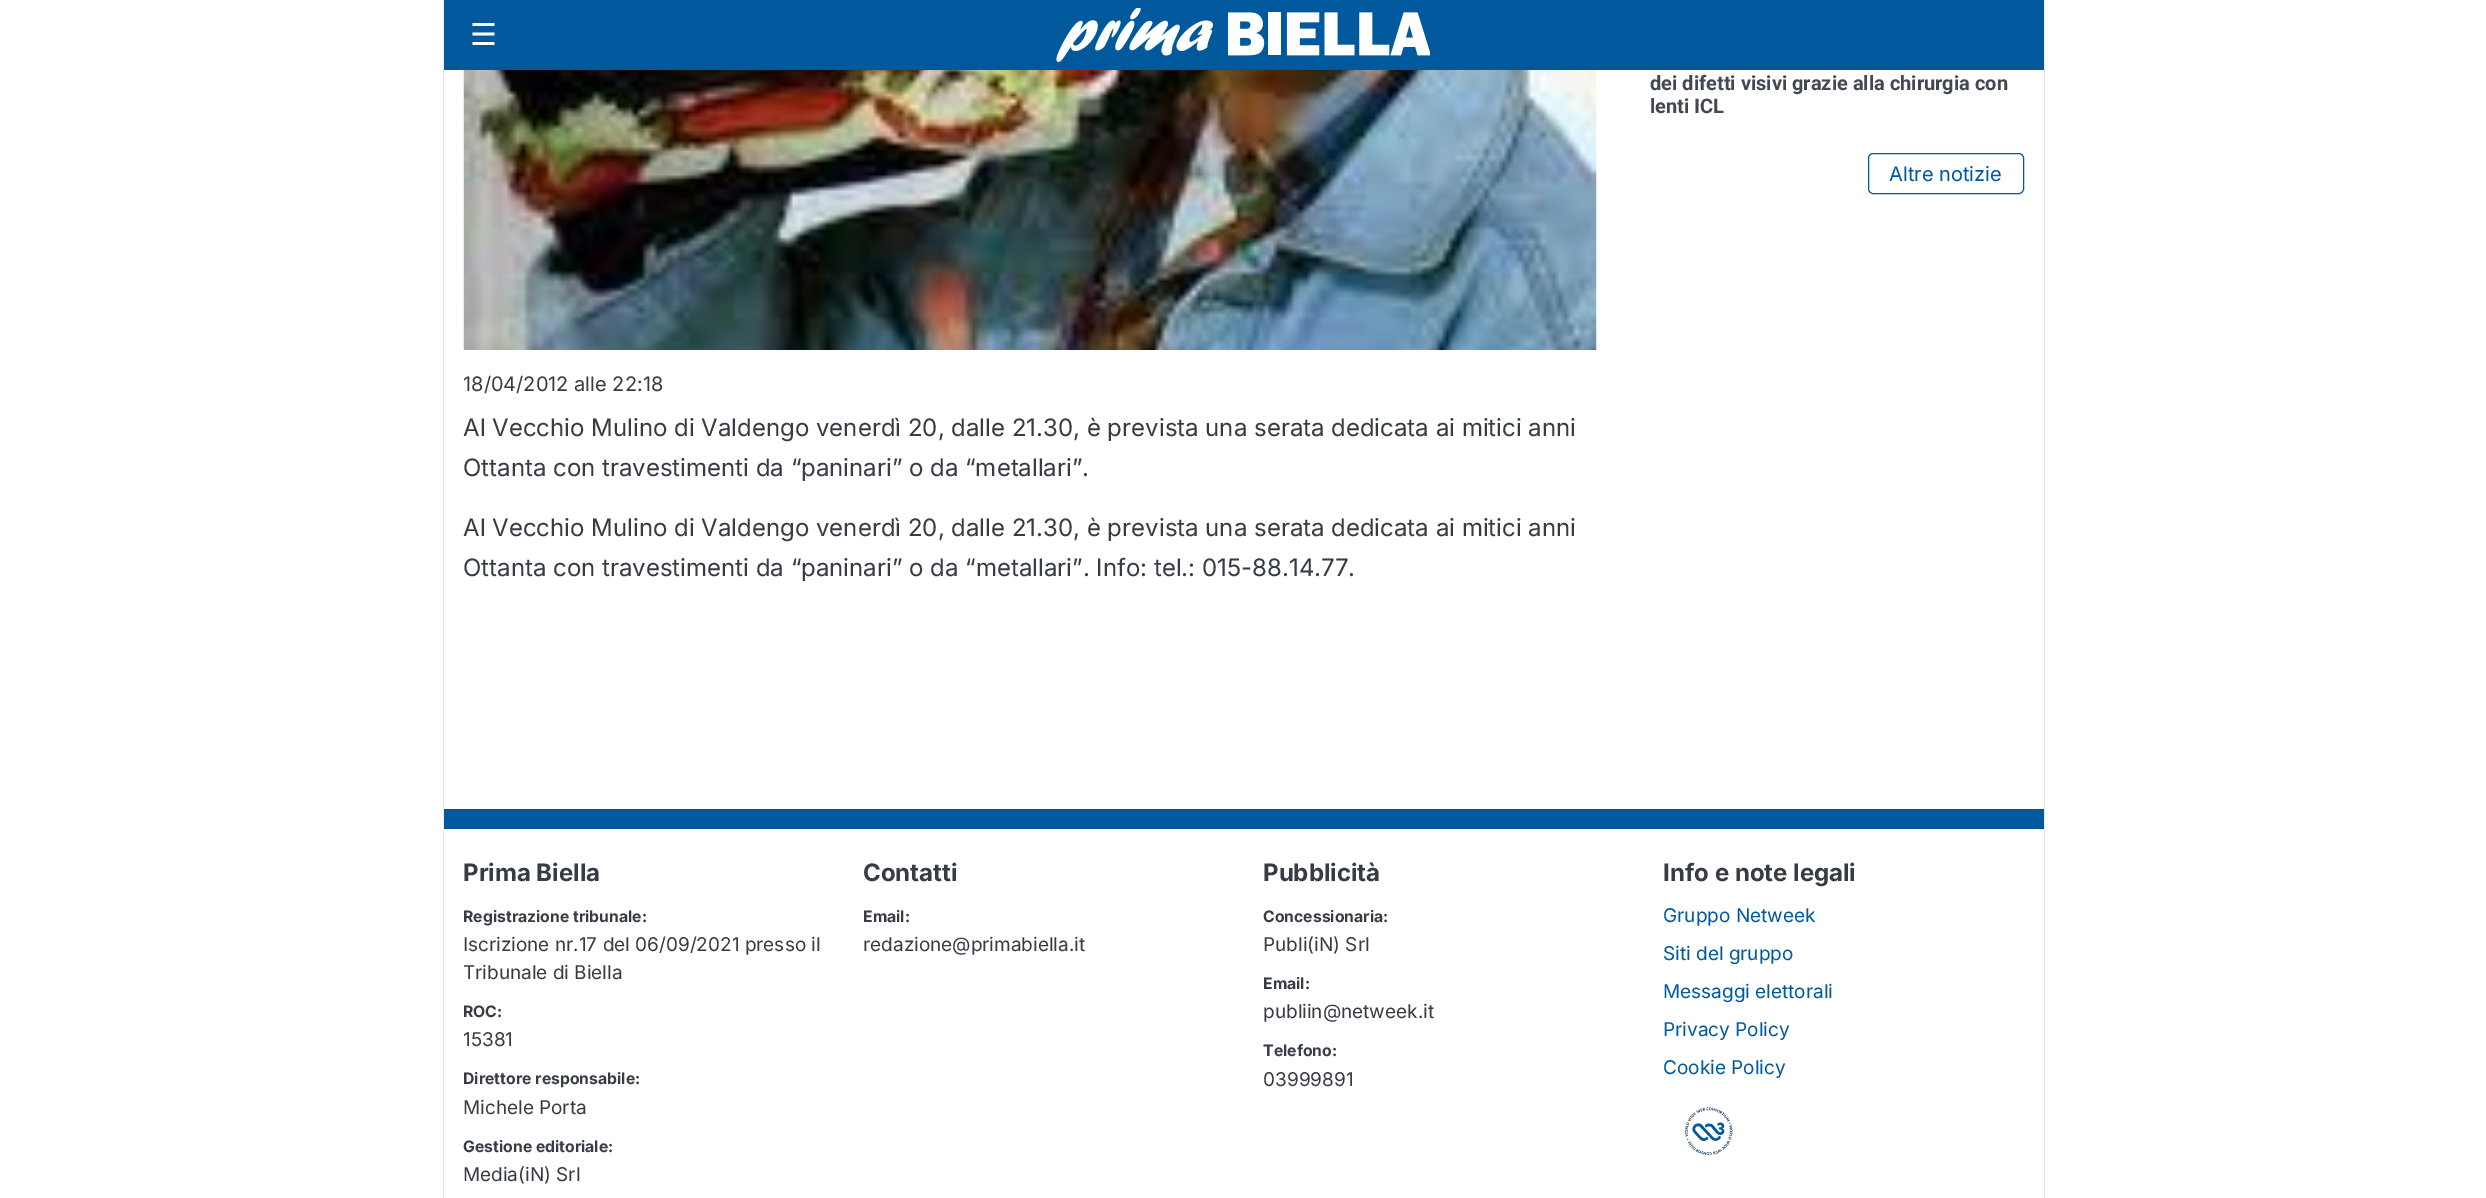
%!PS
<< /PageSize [2486 1198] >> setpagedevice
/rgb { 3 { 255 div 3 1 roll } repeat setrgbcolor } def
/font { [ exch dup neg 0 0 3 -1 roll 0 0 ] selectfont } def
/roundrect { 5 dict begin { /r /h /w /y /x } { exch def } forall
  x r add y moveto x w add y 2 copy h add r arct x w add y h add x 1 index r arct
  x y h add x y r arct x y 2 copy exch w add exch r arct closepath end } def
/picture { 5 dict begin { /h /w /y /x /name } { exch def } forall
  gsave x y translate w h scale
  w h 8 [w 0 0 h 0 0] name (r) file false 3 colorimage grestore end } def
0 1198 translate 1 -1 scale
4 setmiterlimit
255 255 255 rgb
0 0 2486 1198 rectfill
0 89 156 rgb
444 0 1600 70 rectfill
(img/1.rgb) 1056 8 374 54 picture
231 234 240 rgb
445 809 moveto 2045 809 lineto 2045 -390 lineto 2044 -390 lineto 2044 809 lineto closepath fill
443 -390 moveto 443 809 lineto 2043 809 lineto 444 809 lineto 444 -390 lineto closepath fill
0 89 156 rgb
1868.5 153.5 155 40 4.5 roundrect stroke
(img/2.rgb) 463 70 1134 280 picture
[
  [2044 809 1 389 231 234 240]
  [443 809 1 389 231 234 240]
  [444 809 1600 20 0 89 156]
] { aload pop rgb rectfill } forall
(img/3.rgb) 1685 1107 48 48 picture
/DejaVuSans-Regular 30 font
255 255 255 rgb
470 45 moveto (☰) show
/Roboto-Bold 20 font
66 71 81 rgb
1650 90 moveto (dei difetti visivi grazie alla chirurgia con) show
1650 113 moveto (lenti ICL) show
/Inter-Regular 20 font
0 89 156 rgb
1889 181 moveto (Altre notizie) show
55 60 68 rgb
463 391 moveto (18/04/2012 alle 22:18) show
/Inter-Regular 24 font
[
  [(Al Vecchio Mulino di Valdengo venerdì 20, dalle 21.30, è prevista una serata dedicata ai mitici anni) 463 436]
  [(Ottanta con travestimenti da “paninari” o) 463 476]
  [(da “metallari”.) 930 476]
  [(Al Vecchio Mulino di Valdengo venerdì 20, dalle 21.30, è prevista una serata dedicata ai mitici anni) 463 536]
  [(Ottanta con travestimenti da “paninari” o da “metallari”. Info: tel.: 015-88.14.77.) 463 576]
] { aload pop moveto show } forall
/Inter-Bold 24 font
463 881 moveto (Prima Biella) show
/Inter-Bold 15.75 font
463 922 moveto (Registrazione tribunale:) show
/Inter-Regular 19 font
463 951 moveto (Iscrizione nr.17 del 06/09/2021 presso il) show
463 979 moveto (Tribunale di Biella) show
/Inter-Bold 15.75 font
463 1017 moveto (ROC:) show
/Inter-Regular 19 font
463 1046 moveto (15381) show
/Inter-Bold 15.75 font
463 1084 moveto (Direttore responsabile:) show
/Inter-Regular 19 font
463 1114 moveto (Michele Porta) show
/Inter-Bold 15.75 font
463 1152 moveto (Gestione editoriale:) show
/Inter-Regular 19 font
463 1181 moveto (Media\(iN\) Srl) show
/Inter-Bold 24 font
863 881 moveto (Contatti) show
/Inter-Bold 15.75 font
863 922 moveto (Email:) show
/Inter-Regular 19 font
863 951 moveto (redazione@primabiella.it) show
/Inter-Bold 24 font
1263 881 moveto (Pubblicità) show
/Inter-Bold 15.75 font
1263 922 moveto (Concessionaria:) show
/Inter-Regular 19 font
1263 951 moveto (Publi\(iN\) Srl) show
/Inter-Bold 15.75 font
1263 989 moveto (Email:) show
/Inter-Regular 19 font
1263 1018 moveto (publiin@netweek.it) show
/Inter-Bold 15.75 font
1263 1056 moveto (Telefono:) show
/Inter-Regular 19 font
1263 1086 moveto (03999891) show
/Inter-Bold 24 font
1663 881 moveto (Info e note legali) show
/Inter-Regular 19 font
0 89 156 rgb
[
  [(Gruppo Netweek) 1663 922]
  [(Siti del gruppo) 1663 960]
  [(Messaggi elettorali) 1663 998]
  [(Privacy Policy) 1663 1036]
  [(Cookie Policy) 1663 1074]
] { aload pop moveto show } forall
showpage
